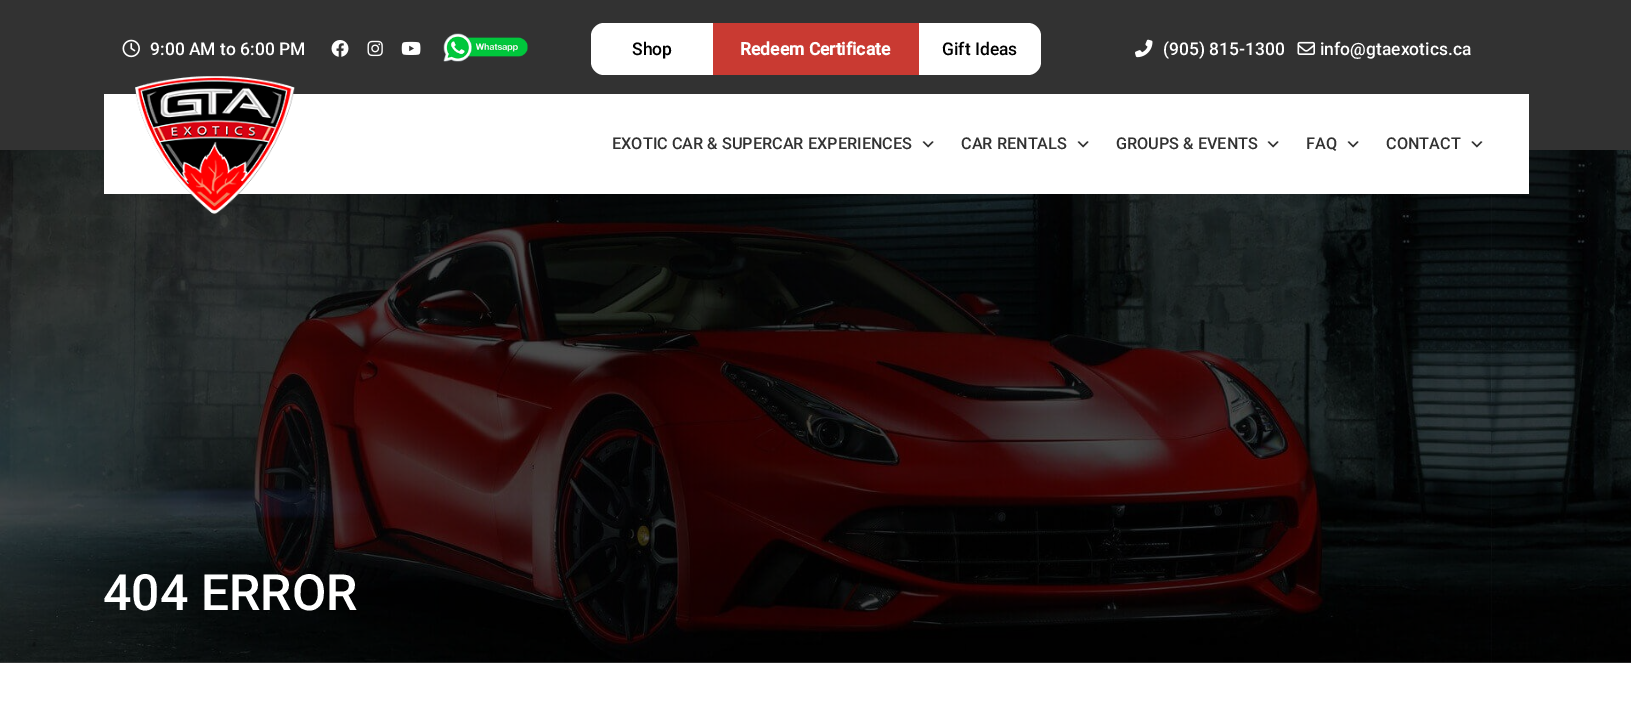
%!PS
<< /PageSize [1631 706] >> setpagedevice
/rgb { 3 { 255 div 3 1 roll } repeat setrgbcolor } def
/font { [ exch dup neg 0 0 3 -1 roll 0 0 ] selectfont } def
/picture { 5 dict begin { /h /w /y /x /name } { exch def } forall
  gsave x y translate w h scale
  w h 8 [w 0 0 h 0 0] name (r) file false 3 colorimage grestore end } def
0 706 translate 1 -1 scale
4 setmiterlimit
255 255 255 rgb
0 0 1631 706 rectfill
77 77 77 rgb
0 662 1631 1 rectfill
50 50 50 rgb
0 0 1631 150 rectfill
(img/1.rgb) 122 39 18 19 picture
(img/2.rgb) 331 40 18 17 picture
(img/3.rgb) 367 40 16 17 picture
(img/4.rgb) 401 41 20 14 picture
(img/5.rgb) 443 33 85 29 picture
255 255 255 rgb
604 23 moveto 713 23 lineto 713 75 lineto 604 75 lineto 597 75 591 69 591 62 curveto 591 36 lineto 591 29 597 23 604 23 curveto closepath fill
201 58 50 rgb
713 23 206 52 rectfill
255 255 255 rgb
919 23 moveto 1028 23 lineto 1035 23 1041 29 1041 36 curveto 1041 62 lineto 1041 69 1035 75 1028 75 curveto 919 75 lineto closepath fill
(img/6.rgb) 1135 39 18 19 picture
(img/7.rgb) 1297 41 18 14 picture
(img/11.rgb) 0 150 1631 513 picture
104 94 1425 100 rectfill
(img/8.rgb) 135 76 160 138 picture
(img/9.rgb) 922 141 12 7 picture
(img/9.rgb) 1077 141 12 7 picture
(img/9.rgb) 1267 141 12 7 picture
(img/9.rgb) 1347 141 12 7 picture
(img/10.rgb) 1471 141 12 7 picture
/Roboto-Medium 17.5 font
150 55 moveto (9:00 AM to 6:00 PM) show
0 0 0 rgb
632 55 moveto (Shop) show
/Roboto-Bold 17.5 font
255 255 255 rgb
740 55 moveto (Redeem Certificate) show
/Roboto-Medium 17.5 font
0 0 0 rgb
942 55 moveto (Gift Ideas) show
255 255 255 rgb
1163 55 moveto (\(905\) 815-1300) show
1320 55 moveto (info@gtaexotics.ca) show
/Roboto-Medium 16.25 font
50 50 50 rgb
[
  [(EXOTIC CAR & SUPERCAR EXPERIENCES) 612 149]
  [(CAR RENTALS) 961 149]
  [(GROUPS & EVENTS) 1116 149]
  [(FAQ) 1306 149]
  [(CONTACT) 1386 149]
] { aload pop moveto show } forall
/Roboto-Medium 50 font
255 255 255 rgb
103 610 moveto (404 ERROR) show
showpage
